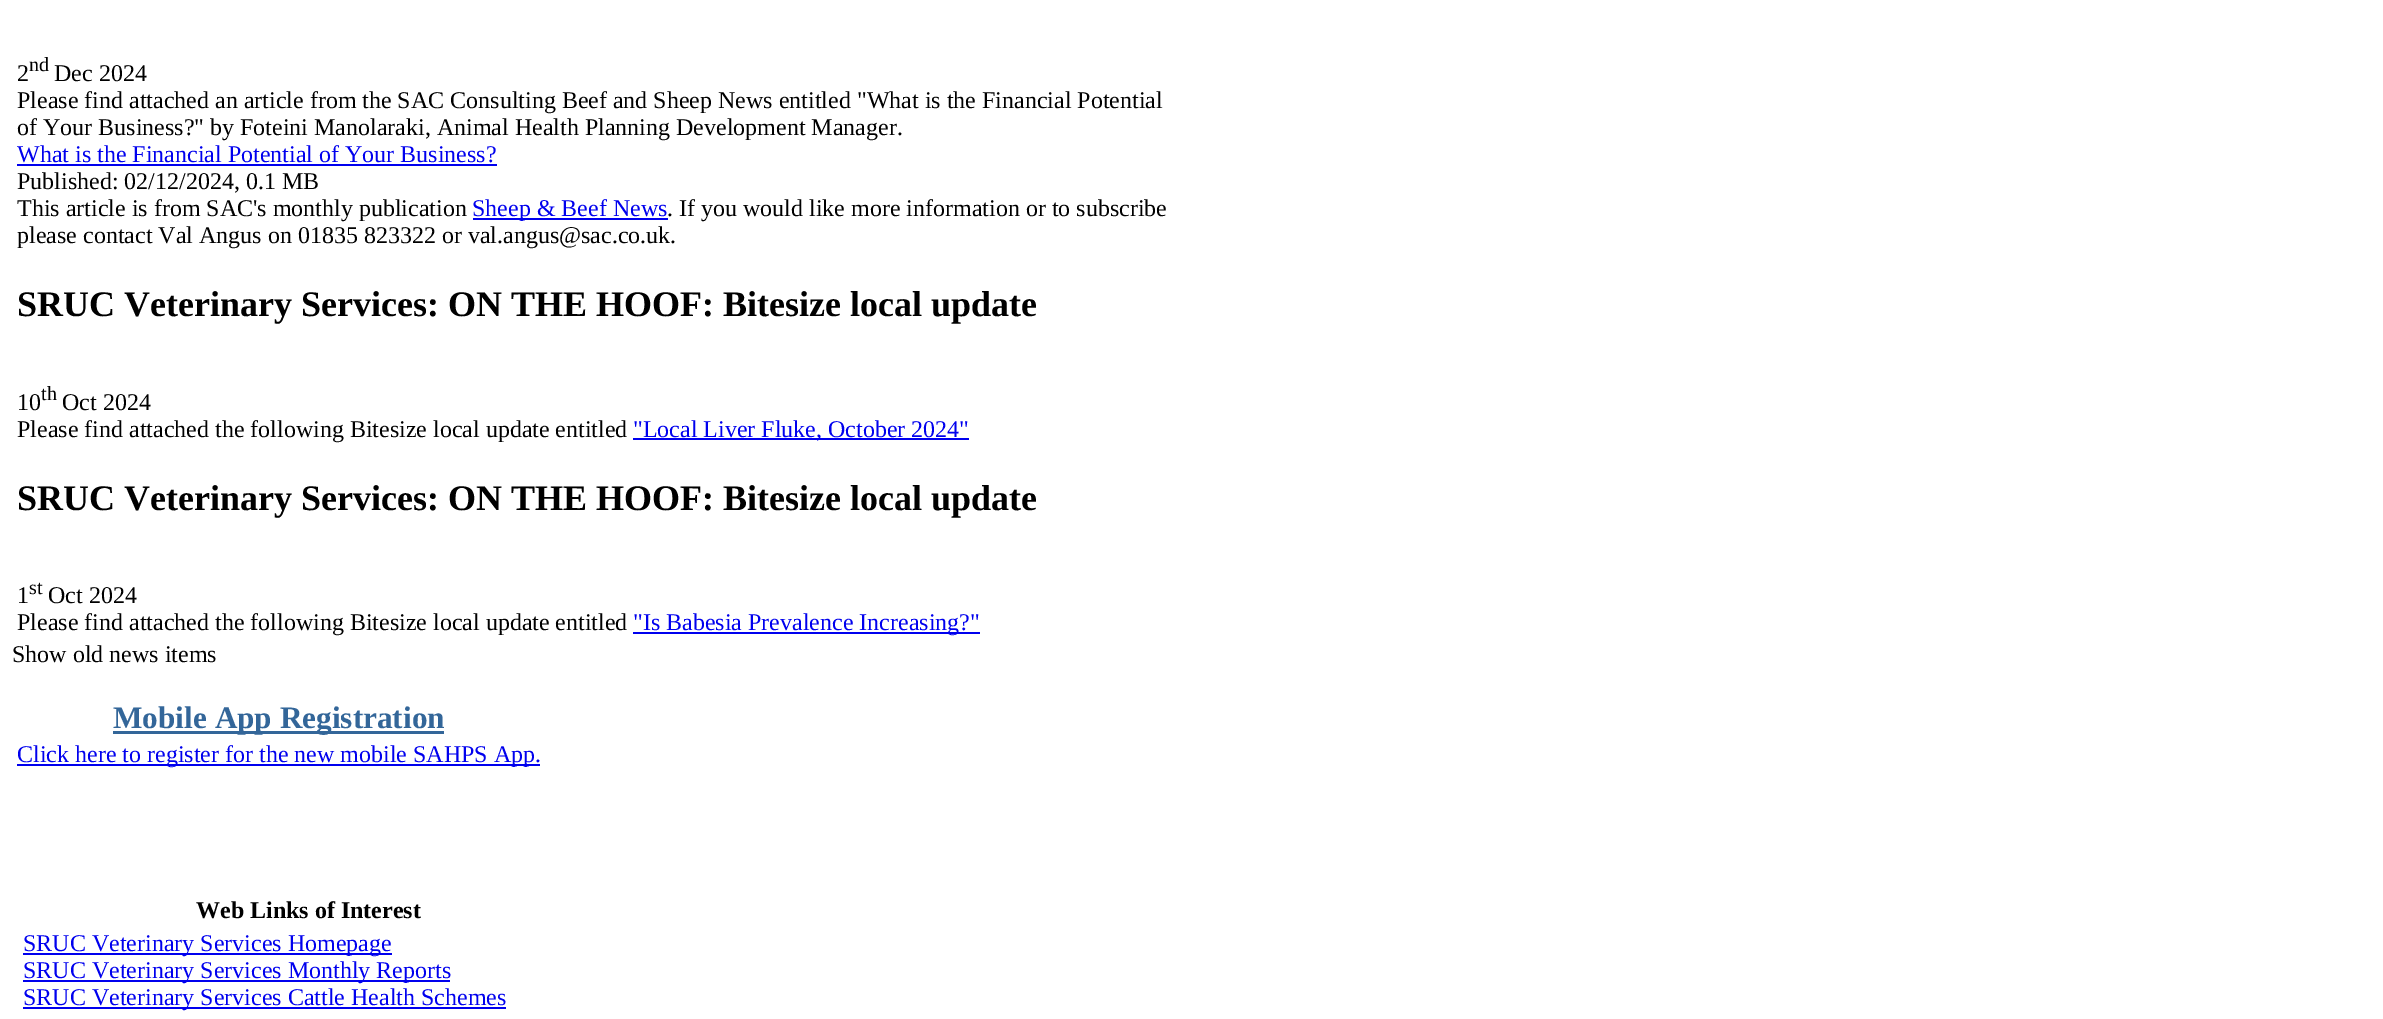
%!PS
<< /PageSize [2383 1019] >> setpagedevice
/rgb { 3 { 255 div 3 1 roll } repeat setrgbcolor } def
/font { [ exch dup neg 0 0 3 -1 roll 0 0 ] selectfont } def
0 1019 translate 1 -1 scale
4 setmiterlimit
255 255 255 rgb
0 0 2383 1019 rectfill
[
  [17 164 480 2 0 0 238]
  [473 218 195 2 0 0 238]
  [633 438 336 2 0 0 238]
  [633 632 347 2 0 0 238]
  [113 731 331 3 51 102 153]
  [17 764 523 2 0 0 238]
  [23 953 369 2 0 0 238]
  [23 980 427 2 0 0 238]
  [23 1007 483 2 0 0 238]
] { aload pop rgb rectfill } forall
/LiberationSerif-Regular 24 font
0 0 0 rgb
17 81 moveto (2) show
/LiberationSerif-Regular 20 font
29 71 moveto (nd) show
/LiberationSerif-Regular 24 font
[
  [(Dec 2024) 54 81]
  [(Please find attached an article from the SAC Consulting Beef and Sheep News entitled "What is the Financial Potential) 17 108]
  [(of Your Business?" by Foteini Manolaraki, Animal Health Planning Development Manager.) 17 135]
] { aload pop moveto show } forall
0 0 238 rgb
17 162 moveto (What is the Financial Potential of Your Business?) show
0 0 0 rgb
17 189 moveto (Published: 02/12/2024, 0.1 MB) show
17 216 moveto (This article is from SAC's monthly publication) show
0 0 238 rgb
472 216 moveto (Sheep & Beef News) show
0 0 0 rgb
667 216 moveto (. If you would like more information or to subscribe) show
17 243 moveto (please contact Val Angus on 01835 823322 or val.angus@sac.co.uk.) show
/LiberationSerif-Bold 36 font
17 316 moveto (SRUC Veterinary Services: ON THE HOOF: Bitesize local update) show
/LiberationSerif-Regular 24 font
17 410 moveto (10) show
/LiberationSerif-Regular 20 font
41 400 moveto (th) show
/LiberationSerif-Regular 24 font
62 410 moveto (Oct 2024) show
17 437 moveto (Please find attached the following Bitesize local update entitled) show
0 0 238 rgb
633 437 moveto ("Local Liver Fluke, October 2024") show
/LiberationSerif-Bold 36 font
0 0 0 rgb
17 510 moveto (SRUC Veterinary Services: ON THE HOOF: Bitesize local update) show
/LiberationSerif-Regular 24 font
17 603 moveto (1) show
/LiberationSerif-Regular 20 font
29 594 moveto (st) show
/LiberationSerif-Regular 24 font
48 603 moveto (Oct 2024) show
17 630 moveto (Please find attached the following Bitesize local update entitled) show
0 0 238 rgb
633 630 moveto ("Is Babesia Prevalence Increasing?") show
0 0 0 rgb
12 662 moveto (Show old news items) show
/LiberationSerif-Bold 31.25 font
51 102 153 rgb
113 728 moveto (Mobile App Registration) show
/LiberationSerif-Regular 24 font
0 0 238 rgb
17 762 moveto (Click here to register for the new mobile SAHPS App.) show
/LiberationSerif-Bold 24 font
0 0 0 rgb
196 918 moveto (Web Links of Interest) show
/LiberationSerif-Regular 24 font
0 0 238 rgb
[
  [(SRUC Veterinary Services Homepage) 23 951]
  [(SRUC Veterinary Services Monthly Reports) 23 978]
  [(SRUC Veterinary Services Cattle Health Schemes) 23 1005]
] { aload pop moveto show } forall
showpage
